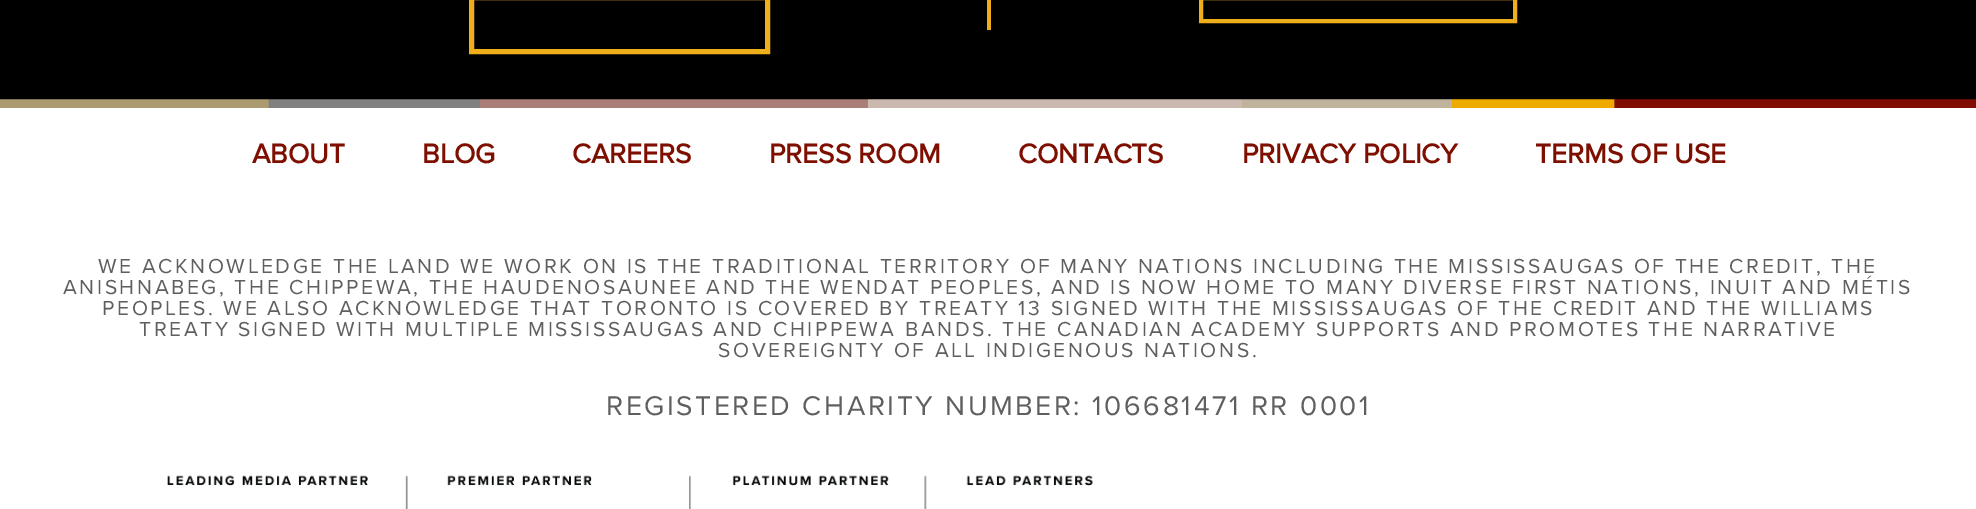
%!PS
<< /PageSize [1976 509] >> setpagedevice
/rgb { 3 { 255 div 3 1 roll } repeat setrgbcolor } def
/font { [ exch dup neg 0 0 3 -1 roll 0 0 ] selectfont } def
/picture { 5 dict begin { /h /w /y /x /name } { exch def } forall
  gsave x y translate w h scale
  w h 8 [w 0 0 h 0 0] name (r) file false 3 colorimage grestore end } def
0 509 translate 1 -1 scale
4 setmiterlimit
255 255 255 rgb
0 0 1976 509 rectfill
0 0 0 rgb
0 0 1976 100 rectfill
239 175 27 rgb
987 0 4 30 rectfill
5 setlinewidth
471.5 -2.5 296 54 rectstroke
4 setlinewidth
1201 -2 314 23 rectstroke
(img/1.rgb) 0 99 1976 9 picture
(img/2.rgb) 167 475 926 34 picture
/ProximaNova-Bold 28 font
125 14 0 rgb
[
  [(ABOUT) 252 163]
  [(BLOG) 422 163]
  [(CAREERS) 572 163]
  [(PRESS ROOM) 769 163]
  [(CONTACTS) 1018 163]
  [(PRIVACY POLICY) 1242 163]
  [(TERMS OF USE) 1535 163]
] { aload pop moveto show } forall
/ProximaNova-Regular 21 font
95 95 95 rgb
98 273 moveto 2.62 0 (WE ACKNOWLEDGE THE LAND WE WORK ON IS THE TRADITIONAL TERRITORY OF MANY NATIONS INCLUDING THE MISSISSAUGAS OF THE CREDIT, THE) ashow
63 294 moveto 2.62 0 (ANISHNABEG, THE CHIPPEWA, THE HAUDENOSAUNEE AND THE WENDAT PEOPLES, AND IS NOW HOME TO MANY DIVERSE FIRST NATIONS, INUIT AND MÉTIS) ashow
102 315 moveto 2.62 0 (PEOPLES. WE ALSO ACKNOWLEDGE THAT TORONTO IS COVERED BY TREATY 13 SIGNED WITH THE MISSISSAUGAS OF THE CREDIT AND THE WILLIAMS) ashow
139 336 moveto 2.62 0 (TREATY SIGNED WITH MULTIPLE MISSISSAUGAS AND CHIPPEWA BANDS. THE CANADIAN ACADEMY SUPPORTS AND PROMOTES THE NARRATIVE) ashow
718 357 moveto 2.62 0 (SOVEREIGNTY OF ALL INDIGENOUS NATIONS.) ashow
/ProximaNova-Regular 28 font
606 415 moveto 2.62 0 (REGISTERED CHARITY NUMBER: 106681471 RR 0001) ashow
showpage
